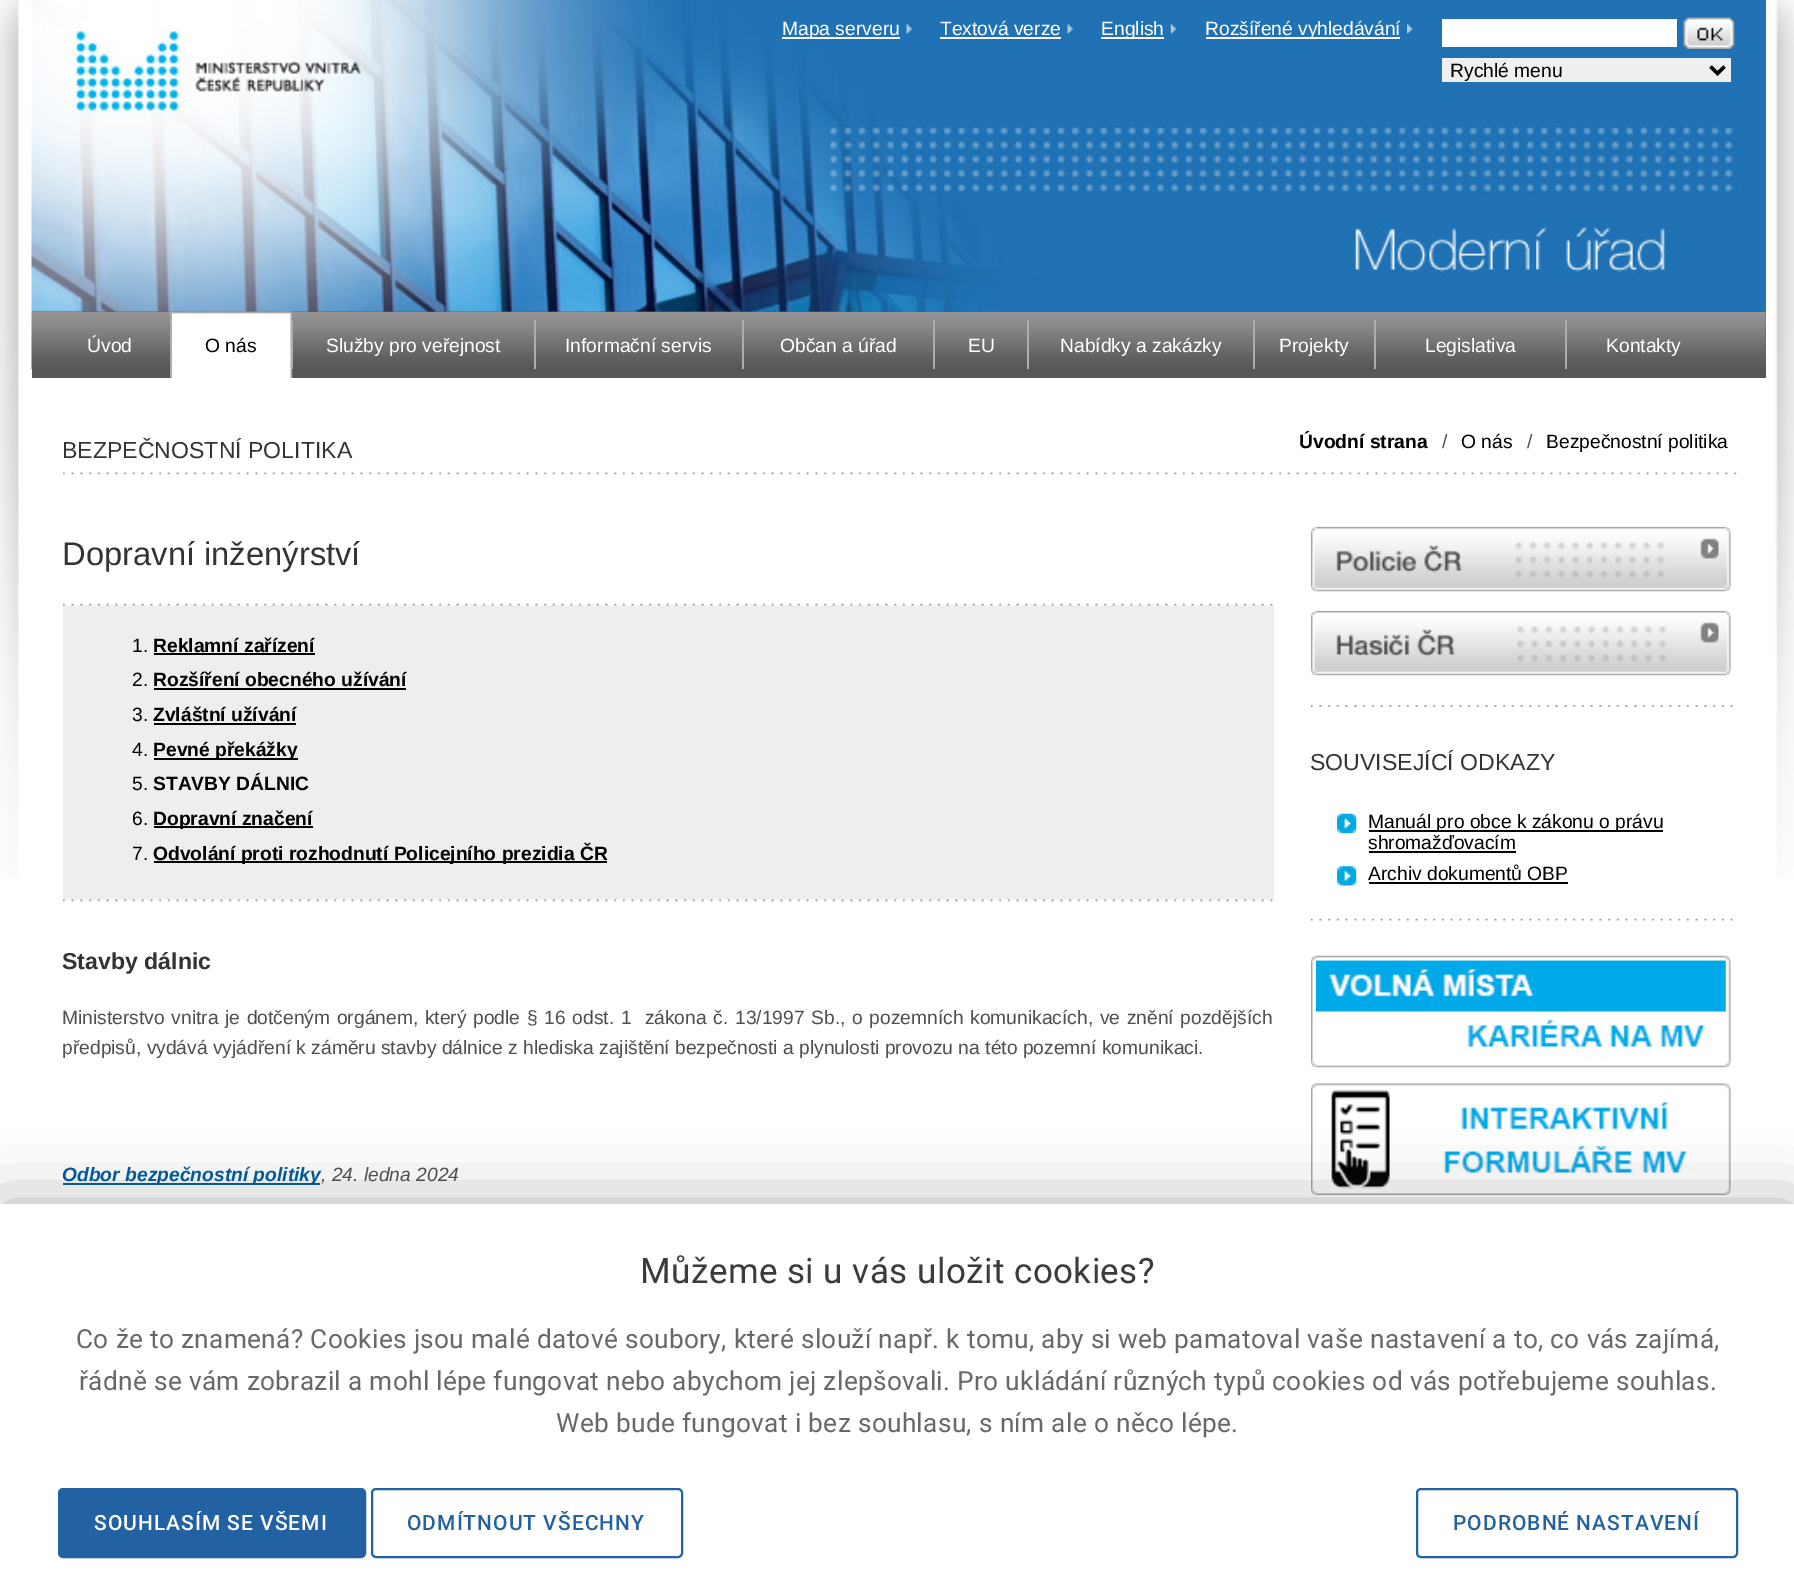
%!PS
<< /PageSize [1794 1591] /PageUsesTransparency true >> setpagedevice
/rgb { 3 { 255 div 3 1 roll } repeat setrgbcolor } def
/font { [ exch dup neg 0 0 3 -1 roll 0 0 ] selectfont } def
/alpha { dup .setfillconstantalpha .setstrokeconstantalpha } def
/roundrect { 5 dict begin { /r /h /w /y /x } { exch def } forall
  x r add y moveto x w add y 2 copy h add r arct x w add y h add x 1 index r arct
  x y h add x y r arct x y 2 copy exch w add exch r arct closepath end } def
/shadow { 12 dict begin { /a /b /q /h /w /y /x } { exch def } forall gsave /was 0 def
  9 -2 -9 { dup b mul 4 div /e exch def 1 sub .425 mul 2.718 exch exp 1 add a .99 .min exch div /now exch def
    1 1 now sub 1 was sub div sub alpha /was now def
    w h .min e 2 mul add 0 gt { x e sub y e sub w e 2 mul add h e 2 mul add
      q e add b .6 mul add w h .min 2 div e add .min 0 .max roundrect fill } if } for grestore end } def
/picture { 5 dict begin { /h /w /y /x /name } { exch def } forall
  gsave x y translate w h scale
  w h 8 [w 0 0 h 0 0] name (r) file false 3 colorimage grestore end } def
0 .pushpdf14devicefilter
0 1591 translate 1 -1 scale
4 setmiterlimit
255 255 255 rgb
0 0 1794 1591 rectfill
(img/1.rgb) 0 0 1794 878 picture
87 87 87 rgb
32 312 1734 66 rectfill
(img/8.rgb) 31 311 1735 59 picture
33 114 180 rgb
32 0 1734 312 rectfill
(img/2.rgb) 31 0 1710 312 picture
(img/3.rgb) 73 28 315 115 picture
255 255 255 rgb
782 37 118 2 rectfill
(img/4.rgb) 906 24 6 10 picture
940 37 121 2 rectfill
(img/4.rgb) 1067 24 6 10 picture
1101 37 63 2 rectfill
(img/5.rgb) 1170 24 6 10 picture
1206 37 194 2 rectfill
(img/6.rgb) 1407 24 6 10 picture
1442 19 235 28 rectfill
(img/7.rgb) 1683 17 52 32 picture
239 239 239 rgb
1442 58 289 24 rectfill
0 0 0 rgb
3.5 setlinewidth
1710.5 66.5 moveto 1717.5 73.5 lineto 1724.5 66.5 lineto stroke
255 255 255 rgb
172 312 119 66 rectfill
(img/9.rgb) 169 311 124 67 picture
[
  [170 312 2 66 173 173 173]
  [291 320 2 49 173 173 173]
  [534 320 2 49 173 173 173]
  [742 320 2 49 173 173 173]
  [933 320 2 49 173 173 173]
  [1027 320 2 49 173 173 173]
  [1253 320 2 49 173 173 173]
  [1374 320 2 49 173 173 173]
  [1565 320 2 49 173 173 173]
] { aload pop rgb rectfill } forall
(img/10.rgb) 63 472 1674 3 picture
238 238 238 rgb
63 605 1211 295 rectfill
(img/11.rgb) 63 603 1211 3 picture
(img/12.rgb) 63 899 1211 3 picture
[
  [154 653 161 2 0 0 0]
  [154 688 252 2 0 0 0]
  [154 723 142 2 0 0 0]
  [154 758 144 2 0 0 0]
  [154 826 159 2 0 0 0]
  [154 861 453 2 0 0 0]
  [63 1183 257 2 0 89 155]
] { aload pop rgb rectfill } forall
(img/13.rgb) 1311 705 422 2 picture
(img/14.rgb) 1310 526 421 66 picture
(img/15.rgb) 1310 610 421 66 picture
(img/16.rgb) 1311 918 422 3 picture
(img/17.rgb) 1337 813 20 20 picture
0 0 0 rgb
1369 830 294 2 rectfill
1369 851 147 2 rectfill
(img/18.rgb) 1337 866 20 20 picture
1369 882 199 2 rectfill
(img/19.rgb) 1311 955 420 113 picture
(img/20.rgb) 1316 960 410 52 picture
(img/21.rgb) 1311 1083 420 113 picture
59 59 59 rgb
0 1206 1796 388 0 35 0.4 shadow
255 255 255 rgb
0 1204 1794 387 rectfill
35 98 162 rgb
59 1489 306 68 4 roundrect gsave fill grestore
2 setlinewidth
stroke
372 1489 310 68 4 roundrect stroke
1417 1489 320 68 4 roundrect stroke
/LiberationSans-Regular 19.25 font
255 255 255 rgb
[
  [(Mapa serveru) 782 35]
  [(Textová verze) 940 35]
  [(English) 1101 35]
  [(Rozšířené vyhledávání) 1205 35]
] { aload pop moveto show } forall
0 0 0 rgb
1450 77 moveto (Rychlé menu) show
255 255 255 rgb
87 352 moveto (Úvod) show
0 0 0 rgb
205 352 moveto (O nás) show
255 255 255 rgb
[
  [(Služby pro veřejnost) 326 352]
  [(Informační servis) 565 352]
  [(Občan a úřad) 780 352]
  [(EU) 968 352]
  [(Nabídky a zakázky) 1060 352]
  [(Projekty) 1279 352]
  [(Legislativa) 1425 352]
  [(Kontakty) 1606 352]
] { aload pop moveto show } forall
/LiberationSans-Regular 23.1 font
51 51 51 rgb
62 458 moveto (BEZPEČNOSTNÍ POLITIKA) show
/LiberationSans-Bold 19.25 font
0 0 0 rgb
1299 448 moveto (Úvodní strana) show
/LiberationSans-Regular 19.25 font
79 79 79 rgb
1442 448 moveto (/) show
0 0 0 rgb
1461 448 moveto (O nás) show
79 79 79 rgb
1527 448 moveto (/) show
0 0 0 rgb
1546 448 moveto (Bezpečnostní politika) show
/LiberationSans-Regular 32.75 font
51 51 51 rgb
62 565 moveto (Dopravní inženýrství) show
/LiberationSans-Regular 19.25 font
0 0 0 rgb
132 652 moveto (1.) show
/LiberationSans-Bold 19.25 font
153 652 moveto (Reklamní zařízení) show
/LiberationSans-Regular 19.25 font
132 686 moveto (2.) show
/LiberationSans-Bold 19.25 font
153 686 moveto (Rozšíření obecného užívání) show
/LiberationSans-Regular 19.25 font
132 721 moveto (3.) show
/LiberationSans-Bold 19.25 font
153 721 moveto (Zvláštní užívání) show
/LiberationSans-Regular 19.25 font
132 756 moveto (4.) show
/LiberationSans-Bold 19.25 font
153 756 moveto (Pevné překážky) show
/LiberationSans-Regular 19.25 font
132 790 moveto (5.) show
/LiberationSans-Bold 19.25 font
153 790 moveto (STAVBY DÁLNIC) show
/LiberationSans-Regular 19.25 font
132 825 moveto (6.) show
/LiberationSans-Bold 19.25 font
153 825 moveto (Dopravní značení) show
/LiberationSans-Regular 19.25 font
132 860 moveto (7.) show
/LiberationSans-Bold 19.25 font
153 860 moveto (Odvolání proti rozhodnutí Policejního prezidia ČR) show
/LiberationSans-Bold 23.1 font
51 51 51 rgb
62 969 moveto (Stavby dálnic) show
/LiberationSans-Regular 19.25 font
79 79 79 rgb
62 1024 moveto 1.3 0 32 (Ministerstvo vnitra je dotčeným orgánem, který podle § 16 odst. 1  zákona č. 13/1997 Sb., o pozemních komunikacích, ve znění pozdějších) widthshow
62 1054 moveto (předpisů, vydává vyjádření k záměru stavby dálnice z hlediska zajištění bezpečnosti a plynulosti provozu na této pozemní komunikaci.) show
/LiberationSans-BoldItalic 19.25 font
0 89 155 rgb
62 1181 moveto (Odbor bezpečnostní politiky) show
/LiberationSans-Italic 19.25 font
79 79 79 rgb
321 1181 moveto (, 24. ledna 2024) show
/LiberationSans-Regular 23.1 font
51 51 51 rgb
1310 770 moveto (SOUVISEJÍCÍ ODKAZY) show
/LiberationSans-Regular 19.25 font
0 0 0 rgb
[
  [(Manuál pro obce k zákonu o právu) 1368 828]
  [(shromažďovacím) 1368 849]
  [(Archiv dokumentů OBP) 1368 880]
] { aload pop moveto show } forall
/Roboto-Regular 35 font
59 59 59 rgb
640 1283 moveto 0.45 0 (Můžeme si u vás uložit cookies?) ashow
/Roboto-Regular 26.25 font
104 104 104 rgb
76 1348 moveto 0.33 0 (Co že to znamená? Cookies jsou malé datové soubory, které slouží např. k tomu, aby si web pamatoval vaše nastavení a to, co vás zajímá,) ashow
79 1390 moveto 0.33 0 (řádně se vám zobrazil a mohl lépe fungovat nebo abychom jej zlepšovali. Pro ukládání různých typů cookies od vás potřebujeme souhlas.) ashow
556 1432 moveto 0.33 0 (Web bude fungovat i bez souhlasu, s ním ale o něco lépe.) ashow
/Roboto-Medium 21 font
255 255 255 rgb
94 1530 moveto 1 0 (SOUHLASÍM SE VŠEMI) ashow
35 98 162 rgb
407 1530 moveto 1 0 (ODMÍTNOUT VŠECHNY) ashow
1453 1530 moveto 1 0 (PODROBNÉ NASTAVENÍ) ashow
.poppdf14devicefilter showpage
